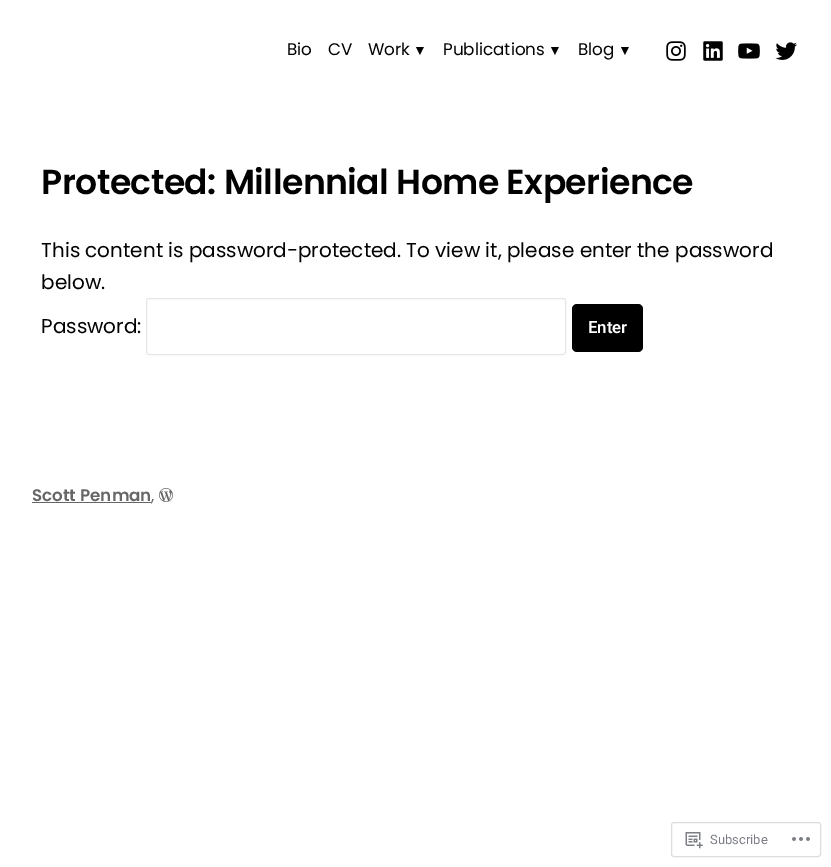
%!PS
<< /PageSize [831 867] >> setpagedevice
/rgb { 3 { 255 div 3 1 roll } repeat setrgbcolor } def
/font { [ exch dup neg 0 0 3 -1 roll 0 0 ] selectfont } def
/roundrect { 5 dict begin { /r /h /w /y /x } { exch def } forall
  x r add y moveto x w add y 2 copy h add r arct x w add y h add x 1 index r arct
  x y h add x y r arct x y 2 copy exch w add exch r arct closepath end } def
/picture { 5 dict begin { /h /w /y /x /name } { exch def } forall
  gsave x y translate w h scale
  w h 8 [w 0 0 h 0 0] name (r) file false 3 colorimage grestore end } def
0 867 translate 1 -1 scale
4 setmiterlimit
255 255 255 rgb
0 0 831 867 rectfill
(img/1.rgb) 666 41 20 20 picture
(img/2.rgb) 703 41 20 20 picture
(img/3.rgb) 738 43 22 16 picture
(img/4.rgb) 775 42 22 18 picture
230 230 230 rgb
146.5 298.5 419 56 2.5 roundrect stroke
0 0 0 rgb
572 304 71 48 5 roundrect fill
102 102 102 rgb
32 502 119 1 rectfill
(img/5.rgb) 159 488 14 14 picture
221 221 223 rgb
671.5 822.5 149 34 2.5 roundrect stroke
(img/6.rgb) 685 832 18 17 picture
(img/7.rgb) 792 837 18 4 picture
/Poppins-Regular 16.75 font
1 1 1 rgb
[
  [(Bio) 287 55]
  [(CV) 328 55]
  [(Work) 368 55]
] { aload pop moveto show } forall
/LiberationSans-Regular 14 font
413 55 moveto (▼) show
/Poppins-Regular 16.75 font
443 55 moveto (Publications) show
/LiberationSans-Regular 14 font
548 55 moveto (▼) show
/Poppins-Regular 16.75 font
578 55 moveto (Blog) show
/LiberationSans-Regular 14 font
618 55 moveto (▼) show
/Poppins-SemiBold 34.6 font
41 194 moveto -0.5 0 (Protected: Millennial Home Experience) ashow
/Poppins-Regular 20 font
[
  [(This content is password-protected. To view it, please enter the password) 41 257]
  [(below.) 41 289]
  [(Password:) 41 333]
] { aload pop moveto show } forall
/Roboto-SemiBold 16.75 font
255 255 255 rgb
588 333 moveto (Enter) show
/Poppins-SemiBold 16.75 font
102 102 102 rgb
32 501 moveto (Scott Penman) show
/Poppins-Regular 16.75 font
151 501 moveto (,) show
/Roboto-Regular 13 font
123 127 133 rgb
710 844 moveto (Subscribe) show
showpage
